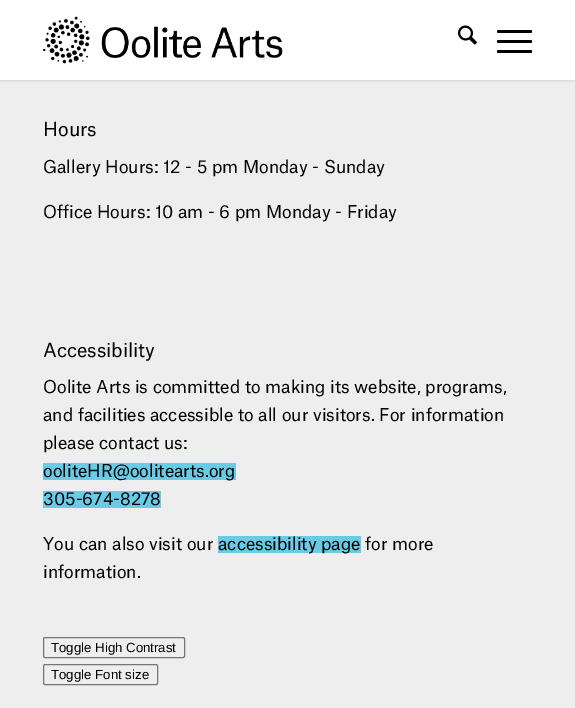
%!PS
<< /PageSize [575 708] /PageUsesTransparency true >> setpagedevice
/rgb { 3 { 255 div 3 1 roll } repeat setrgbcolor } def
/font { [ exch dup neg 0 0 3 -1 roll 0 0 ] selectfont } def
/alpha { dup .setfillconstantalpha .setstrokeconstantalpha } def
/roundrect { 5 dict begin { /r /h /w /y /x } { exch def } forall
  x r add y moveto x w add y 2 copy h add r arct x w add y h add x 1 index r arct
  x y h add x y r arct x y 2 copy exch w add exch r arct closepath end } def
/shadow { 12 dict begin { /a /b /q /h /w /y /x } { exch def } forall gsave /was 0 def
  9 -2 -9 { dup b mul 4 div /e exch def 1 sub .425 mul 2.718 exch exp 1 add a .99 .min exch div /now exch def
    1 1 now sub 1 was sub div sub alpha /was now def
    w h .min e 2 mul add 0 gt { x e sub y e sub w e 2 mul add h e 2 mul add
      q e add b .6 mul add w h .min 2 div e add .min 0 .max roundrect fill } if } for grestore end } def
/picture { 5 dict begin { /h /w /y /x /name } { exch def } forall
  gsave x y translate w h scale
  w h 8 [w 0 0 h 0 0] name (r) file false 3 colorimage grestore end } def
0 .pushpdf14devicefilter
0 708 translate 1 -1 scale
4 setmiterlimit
238 238 238 rgb
0 0 575 708 rectfill
0 0 0 rgb
-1 -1 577 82 0 1 0.1 shadow
255 255 255 rgb
0 0 575 80 rectfill
(img/1.rgb) 43 16 240 48 picture
(img/2.rgb) 458 25 19 20 picture
0 0 0 rgb
497 40 35 3 1.5 roundrect fill
497 30 35 3 1.5 roundrect fill
497 50 35 3 1.5 roundrect fill
[
  [43 463 193 17 105 204 230]
  [43 491 118 17 105 204 230]
  [218 536 143 17 105 204 230]
] { aload pop rgb rectfill } forall
118 118 118 rgb
43.5 637.5 141 20 1.5 roundrect stroke
43.5 664.5 114 20 1.5 roundrect stroke
/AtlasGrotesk-Regular 18.75 font
0 0 0 rgb
43 136 moveto (Hours) show
/AtlasGrotesk-Regular 17 font
43 173 moveto (Gallery Hours: 12 - 5 pm Monday - Sunday) show
43 218 moveto (Office Hours: 10 am - 6 pm Monday - Friday) show
/AtlasGrotesk-Regular 18.75 font
43 357 moveto (Accessibility) show
/AtlasGrotesk-Regular 17 font
[
  [(Oolite Arts is committed to making its website, programs,) 43 393]
  [(and facilities accessible to all our visitors. For information) 43 421]
  [(please contact us:) 43 449]
  [(ooliteHR@oolitearts.org) 43 477]
  [(305-674-8278) 43 505]
  [(You can also visit our) 43 550]
  [(accessibility page for more) 218 550]
  [(information.) 43 578]
] { aload pop moveto show } forall
/LiberationSans-Regular 13.25 font
51 652 moveto (Toggle High Contrast) show
51 679 moveto (Toggle Font size) show
.poppdf14devicefilter showpage
